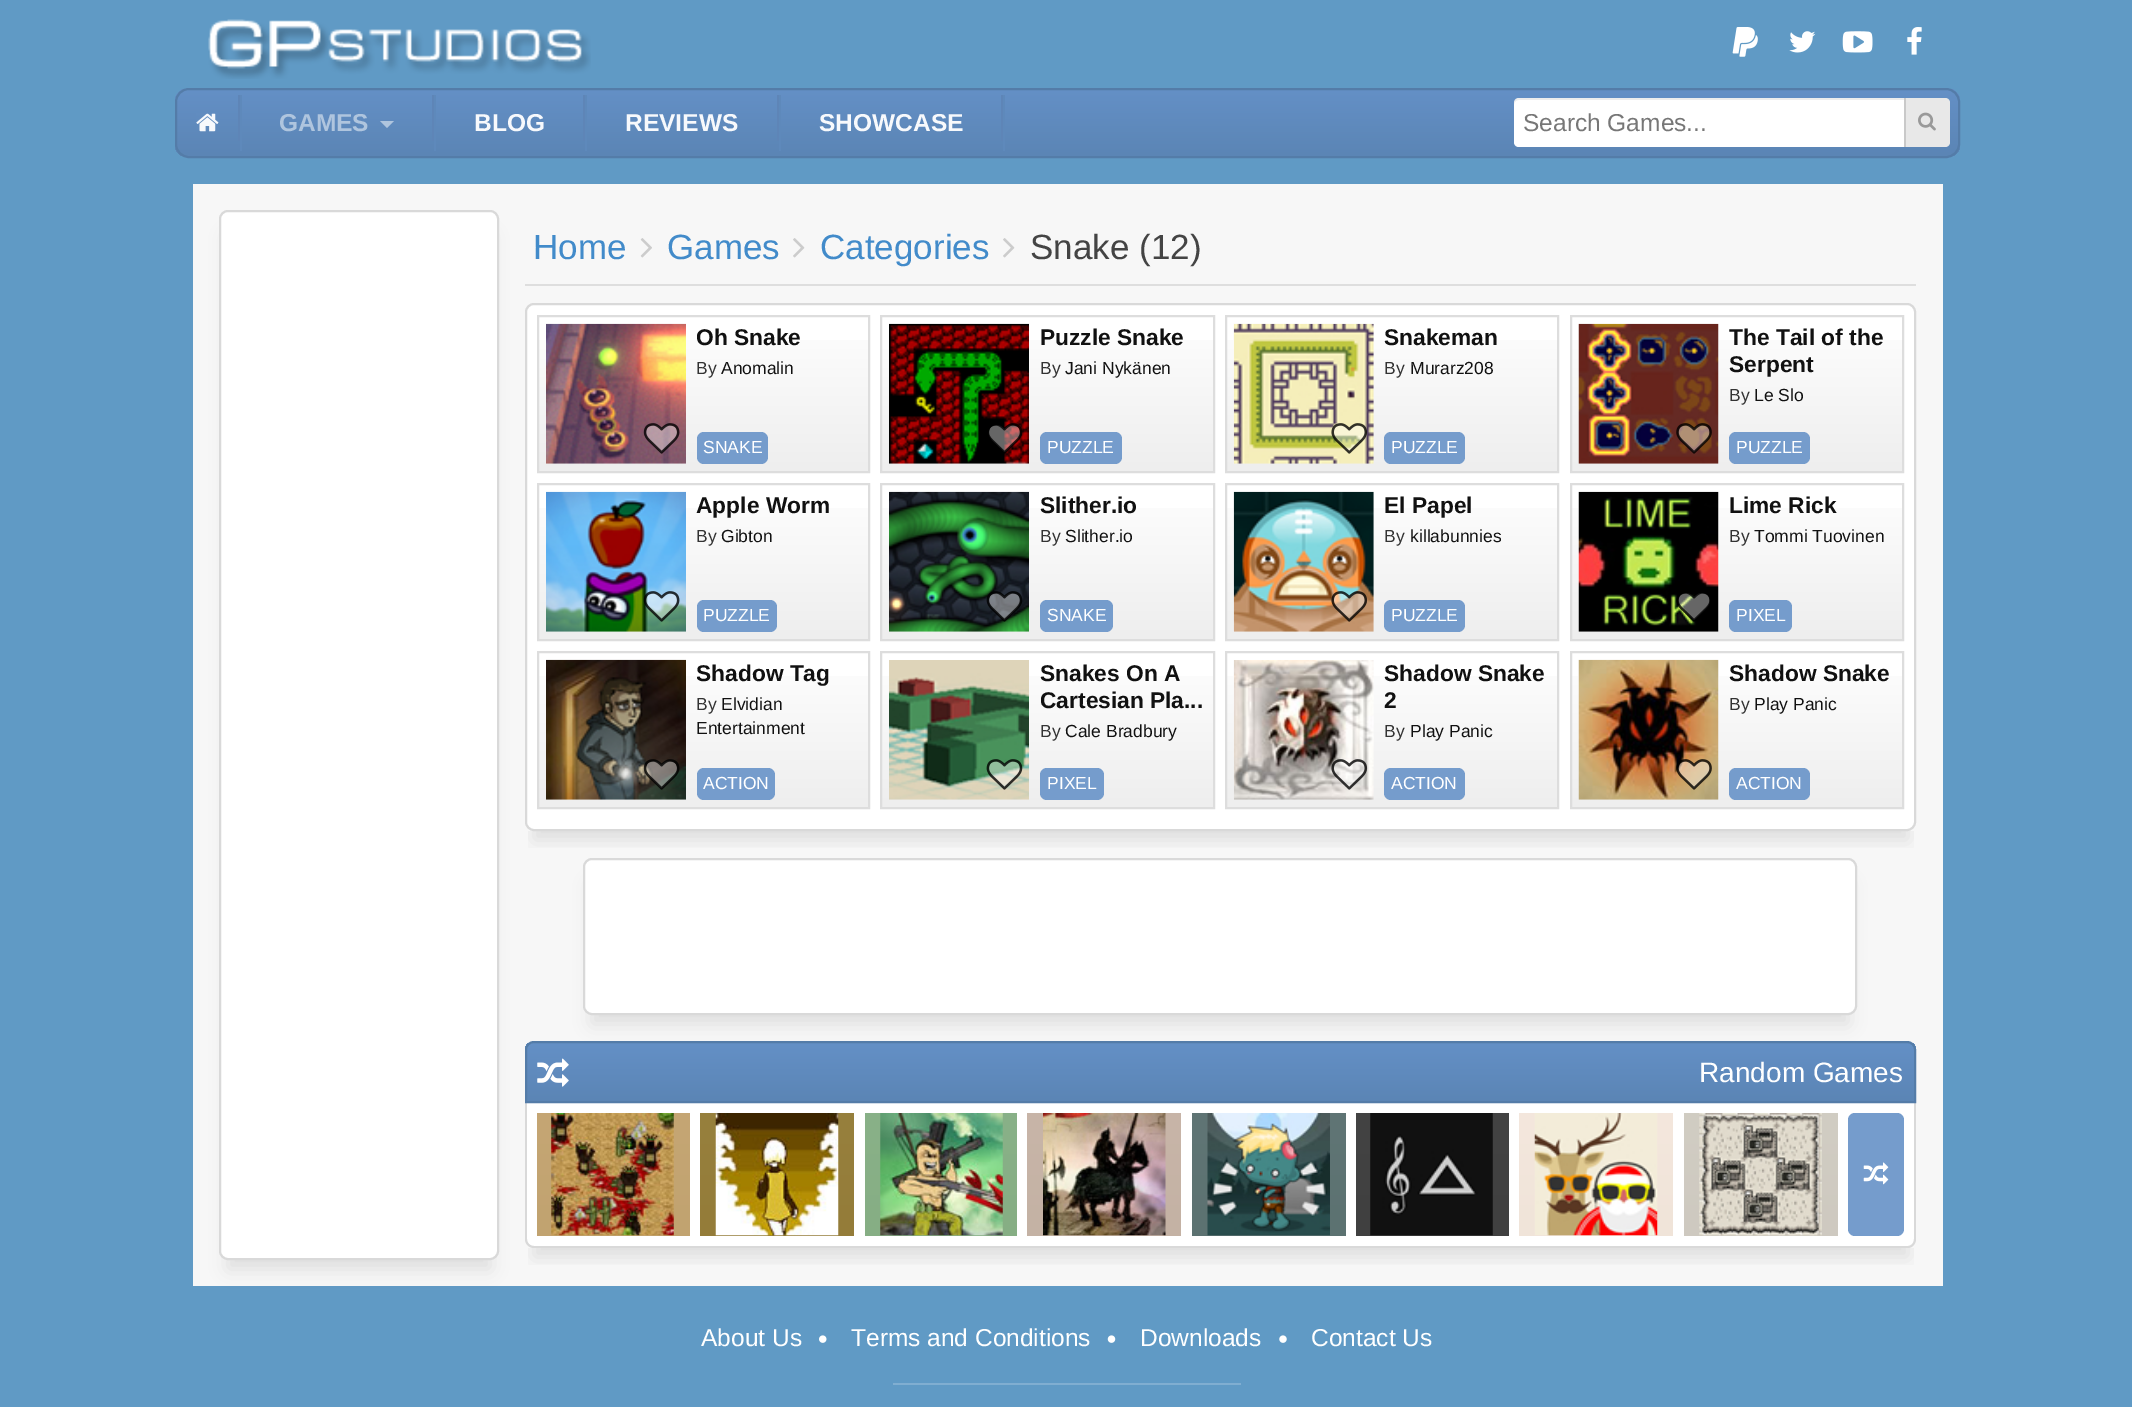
%!PS
<< /PageSize [2132 1407] /PageUsesTransparency true >> setpagedevice
/rgb { 3 { 255 div 3 1 roll } repeat setrgbcolor } def
/font { [ exch dup neg 0 0 3 -1 roll 0 0 ] selectfont } def
/alpha { dup .setfillconstantalpha .setstrokeconstantalpha } def
/roundrect { 5 dict begin { /r /h /w /y /x } { exch def } forall
  x r add y moveto x w add y 2 copy h add r arct x w add y h add x 1 index r arct
  x y h add x y r arct x y 2 copy exch w add exch r arct closepath end } def
/shadow { 12 dict begin { /a /b /q /h /w /y /x } { exch def } forall gsave /was 0 def
  9 -2 -9 { dup b mul 4 div /e exch def 1 sub .425 mul 2.718 exch exp 1 add a .99 .min exch div /now exch def
    1 1 now sub 1 was sub div sub alpha /was now def
    w h .min e 2 mul add 0 gt { x e sub y e sub w e 2 mul add h e 2 mul add
      q e add b .6 mul add w h .min 2 div e add .min 0 .max roundrect fill } if } for grestore end } def
/picture { 5 dict begin { /h /w /y /x /name } { exch def } forall
  gsave x y translate w h scale
  w h 8 [w 0 0 h 0 0] name (r) file false 3 colorimage grestore end } def
0 .pushpdf14devicefilter
0 1407 translate 1 -1 scale
4 setmiterlimit
96 154 197 rgb
0 0 2132 1407 rectfill
(img/1.rgb) 208 19 383 60 picture
(img/2.rgb) 1732 27 26 30 picture
(img/3.rgb) 1789 31 27 22 picture
(img/4.rgb) 1842 31 31 22 picture
(img/5.rgb) 1907 27 15 28 picture
gsave
175 88 1785 70 14 roundrect clip newpath
gsave 175 89 moveto 1960 89 lineto 1960 156 lineto 175 156 lineto closepath clip newpath
<< /ShadingType 2 /ColorSpace /DeviceRGB /Coords [1068 89 1068 156] /Extend [true true] /Function << /FunctionType 2 /Domain [0 1] /C0 [0.392 0.565 0.776] /C1 [0.357 0.522 0.71] /N 1 >> >> shfill grestore
grestore
84 124 168 rgb
2 setlinewidth
176 89 1783 68 13 roundrect stroke
(img/6.rgb) 196 113 23 19 picture
94 137 187 rgb
240 95 2 56 rectfill
94 133 183 rgb
238 95 2 46 rectfill
175 197 222 rgb
380 121 moveto 394 121 lineto 387 128 lineto closepath fill
[
  [434 95 2 56 94 137 187]
  [432 95 2 46 94 133 183]
  [585 95 2 56 94 137 187]
  [583 95 2 46 94 133 183]
  [779 95 2 56 94 137 187]
  [777 95 2 46 94 133 183]
  [1003 95 2 56 94 137 187]
  [1001 95 2 46 94 133 183]
] { aload pop rgb rectfill } forall
255 255 255 rgb
1519 98 moveto 1904 98 lineto 1904 147 lineto 1519 147 lineto 1516 147 1514 145 1514 142 curveto 1514 103 lineto 1514 100 1516 98 1519 98 curveto closepath fill
0.07 alpha
0 0 0 rgb
1519 100 moveto 1904 100 lineto 1904 98 lineto 1519 98 lineto 1516 98 1514 100 1514 103 curveto 1514 105 lineto 1514 102 1516 100 1519 100 curveto closepath fill
1 alpha
232 232 232 rgb
1904 98 moveto 1945 98 lineto 1948 98 1950 100 1950 103 curveto 1950 142 lineto 1950 145 1948 147 1945 147 curveto 1904 147 lineto closepath fill
201 201 201 rgb
1904 98 2 49 rectfill
(img/7.rgb) 1918 112 18 19 picture
247 247 247 rgb
193 184 1750 1102 rectfill
0 0 0 rgb
228 236 262 1033 0 9 0.1 shadow
255 255 255 rgb
220 211 278 1048 8 roundrect gsave fill grestore
217 217 217 rgb
stroke
222 222 222 rgb
525 284 1391 2 rectfill
(img/8.rgb) 640 238 12 20 picture
(img/9.rgb) 793 238 12 20 picture
(img/9.rgb) 1003 238 12 20 picture
gsave
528 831 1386 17 rectclip
0 0 0 rgb
534 329 1374 511 0 9 0.1 shadow
grestore
255 255 255 rgb
526 304 1389 526 8 roundrect gsave fill grestore
217 217 217 rgb
stroke
gsave 539 340 moveto 868 340 lineto 868 471 lineto 539 471 lineto closepath clip newpath
<< /ShadingType 2 /ColorSpace /DeviceRGB /Coords [704 317 704 471] /Extend [true true] /Function << /FunctionType 2 /Domain [0 1] /C0 [1 1 1] /C1 [0.933 0.933 0.933] /N 1 >> >> shfill grestore
221 221 221 rgb
538 316 331 156 rectstroke
(img/10.rgb) 546 323 140 141 picture
(img/12.rgb) 645 425 33 27 picture
(img/11.rgb) 643 423 37 31 picture
117 156 204 rgb
697 432 71 32 7 roundrect fill
gsave 882 340 moveto 1213 340 lineto 1213 471 lineto 882 471 lineto closepath clip newpath
<< /ShadingType 2 /ColorSpace /DeviceRGB /Coords [1047 317 1047 471] /Extend [true true] /Function << /FunctionType 2 /Domain [0 1] /C0 [1 1 1] /C1 [0.933 0.933 0.933] /N 1 >> >> shfill grestore
221 221 221 rgb
881 316 333 156 rectstroke
(img/13.rgb) 889 323 140 141 picture
(img/15.rgb) 988 425 33 27 picture
(img/14.rgb) 988 423 35 31 picture
117 156 204 rgb
1040 432 82 32 7 roundrect fill
gsave 1227 340 moveto 1557 340 lineto 1557 471 lineto 1227 471 lineto closepath clip newpath
<< /ShadingType 2 /ColorSpace /DeviceRGB /Coords [1392 317 1392 471] /Extend [true true] /Function << /FunctionType 2 /Domain [0 1] /C0 [1 1 1] /C1 [0.933 0.933 0.933] /N 1 >> >> shfill grestore
221 221 221 rgb
1226 316 332 156 rectstroke
(img/16.rgb) 1233 323 141 141 picture
(img/18.rgb) 1333 425 32 27 picture
(img/17.rgb) 1331 423 36 31 picture
117 156 204 rgb
1384 432 81 32 7 roundrect fill
gsave 1572 340 moveto 1902 340 lineto 1902 471 lineto 1572 471 lineto closepath clip newpath
<< /ShadingType 2 /ColorSpace /DeviceRGB /Coords [1737 317 1737 471] /Extend [true true] /Function << /FunctionType 2 /Domain [0 1] /C0 [1 1 1] /C1 [0.933 0.933 0.933] /N 1 >> >> shfill grestore
221 221 221 rgb
1571 316 332 156 rectstroke
(img/19.rgb) 1578 323 141 141 picture
(img/21.rgb) 1678 425 32 27 picture
(img/20.rgb) 1676 423 36 31 picture
117 156 204 rgb
1729 432 81 32 7 roundrect fill
gsave 539 508 moveto 868 508 lineto 868 639 lineto 539 639 lineto closepath clip newpath
<< /ShadingType 2 /ColorSpace /DeviceRGB /Coords [704 485 704 639] /Extend [true true] /Function << /FunctionType 2 /Domain [0 1] /C0 [1 1 1] /C1 [0.933 0.933 0.933] /N 1 >> >> shfill grestore
221 221 221 rgb
538 484 331 156 rectstroke
(img/22.rgb) 546 491 140 141 picture
(img/24.rgb) 645 593 33 27 picture
(img/23.rgb) 643 591 37 31 picture
117 156 204 rgb
697 600 80 32 7 roundrect fill
gsave 882 508 moveto 1213 508 lineto 1213 639 lineto 882 639 lineto closepath clip newpath
<< /ShadingType 2 /ColorSpace /DeviceRGB /Coords [1047 485 1047 639] /Extend [true true] /Function << /FunctionType 2 /Domain [0 1] /C0 [1 1 1] /C1 [0.933 0.933 0.933] /N 1 >> >> shfill grestore
221 221 221 rgb
881 484 333 156 rectstroke
(img/25.rgb) 889 491 140 141 picture
(img/27.rgb) 988 593 33 27 picture
(img/26.rgb) 986 591 37 31 picture
117 156 204 rgb
1040 600 73 32 7 roundrect fill
gsave 1227 508 moveto 1557 508 lineto 1557 639 lineto 1227 639 lineto closepath clip newpath
<< /ShadingType 2 /ColorSpace /DeviceRGB /Coords [1392 485 1392 639] /Extend [true true] /Function << /FunctionType 2 /Domain [0 1] /C0 [1 1 1] /C1 [0.933 0.933 0.933] /N 1 >> >> shfill grestore
221 221 221 rgb
1226 484 332 156 rectstroke
(img/28.rgb) 1233 491 141 141 picture
(img/30.rgb) 1333 593 32 27 picture
(img/29.rgb) 1331 591 37 31 picture
117 156 204 rgb
1384 600 81 32 7 roundrect fill
gsave 1572 508 moveto 1902 508 lineto 1902 639 lineto 1572 639 lineto closepath clip newpath
<< /ShadingType 2 /ColorSpace /DeviceRGB /Coords [1737 485 1737 639] /Extend [true true] /Function << /FunctionType 2 /Domain [0 1] /C0 [1 1 1] /C1 [0.933 0.933 0.933] /N 1 >> >> shfill grestore
221 221 221 rgb
1571 484 332 156 rectstroke
(img/31.rgb) 1578 491 141 141 picture
(img/33.rgb) 1678 593 32 27 picture
(img/32.rgb) 1676 593 34 29 picture
117 156 204 rgb
1729 600 63 32 7 roundrect fill
gsave 539 676 moveto 868 676 lineto 868 807 lineto 539 807 lineto closepath clip newpath
<< /ShadingType 2 /ColorSpace /DeviceRGB /Coords [704 653 704 807] /Extend [true true] /Function << /FunctionType 2 /Domain [0 1] /C0 [1 1 1] /C1 [0.933 0.933 0.933] /N 1 >> >> shfill grestore
221 221 221 rgb
538 652 331 156 rectstroke
(img/34.rgb) 546 659 140 141 picture
(img/36.rgb) 645 761 33 27 picture
(img/35.rgb) 643 759 37 31 picture
117 156 204 rgb
697 768 78 32 7 roundrect fill
gsave 882 676 moveto 1213 676 lineto 1213 807 lineto 882 807 lineto closepath clip newpath
<< /ShadingType 2 /ColorSpace /DeviceRGB /Coords [1047 653 1047 807] /Extend [true true] /Function << /FunctionType 2 /Domain [0 1] /C0 [1 1 1] /C1 [0.933 0.933 0.933] /N 1 >> >> shfill grestore
221 221 221 rgb
881 652 333 156 rectstroke
(img/37.rgb) 889 660 140 140 picture
(img/39.rgb) 988 761 33 27 picture
(img/38.rgb) 986 759 37 31 picture
117 156 204 rgb
1040 768 64 32 7 roundrect fill
gsave 1227 676 moveto 1557 676 lineto 1557 807 lineto 1227 807 lineto closepath clip newpath
<< /ShadingType 2 /ColorSpace /DeviceRGB /Coords [1392 653 1392 807] /Extend [true true] /Function << /FunctionType 2 /Domain [0 1] /C0 [1 1 1] /C1 [0.933 0.933 0.933] /N 1 >> >> shfill grestore
221 221 221 rgb
1226 652 332 156 rectstroke
(img/40.rgb) 1233 660 141 140 picture
(img/42.rgb) 1333 761 32 27 picture
(img/41.rgb) 1331 759 37 31 picture
117 156 204 rgb
1384 768 81 32 7 roundrect fill
gsave 1572 676 moveto 1902 676 lineto 1902 807 lineto 1572 807 lineto closepath clip newpath
<< /ShadingType 2 /ColorSpace /DeviceRGB /Coords [1737 653 1737 807] /Extend [true true] /Function << /FunctionType 2 /Domain [0 1] /C0 [1 1 1] /C1 [0.933 0.933 0.933] /N 1 >> >> shfill grestore
221 221 221 rgb
1571 652 332 156 rectstroke
(img/43.rgb) 1578 659 141 141 picture
(img/45.rgb) 1678 761 32 27 picture
(img/44.rgb) 1676 759 36 31 picture
117 156 204 rgb
1729 768 81 32 7 roundrect fill
0 0 0 rgb
592 884 1256 140 0 9 0.1 shadow
255 255 255 rgb
584 859 1272 155 8 roundrect gsave fill grestore
217 217 217 rgb
stroke
gsave
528 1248 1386 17 rectclip
0 0 0 rgb
534 1068 1374 189 0 9 0.1 shadow
grestore
gsave
534 1041 moveto 1907 1041 lineto 1912 1041 1916 1045 1916 1050 curveto 1916 1103 lineto 525 1103 lineto 525 1050 lineto 525 1045 529 1041 534 1041 curveto closepath clip newpath
gsave 525 1043 moveto 1916 1043 lineto 1916 1101 lineto 525 1101 lineto closepath clip newpath
<< /ShadingType 2 /ColorSpace /DeviceRGB /Coords [1221 1043 1221 1101] /Extend [true true] /Function << /FunctionType 2 /Domain [0 1] /C0 [0.392 0.565 0.776] /C1 [0.357 0.522 0.71] /N 1 >> >> shfill grestore
grestore
255 255 255 rgb
527 1103 moveto 1915 1103 lineto 1915 1239 lineto 1915 1243 1912 1246 1908 1246 curveto 534 1246 lineto 530 1246 527 1243 527 1239 curveto closepath fill
217 217 217 rgb
525 1102 moveto 1916 1102 lineto 1916 1239 lineto 1916 1244 1912 1248 1908 1248 curveto 534 1248 lineto 529 1248 525 1244 525 1239 curveto closepath 527 1102 moveto 1914 1102 lineto 1914 1239 lineto 1914 1243 1911 1246 1908 1246 curveto 534 1246 lineto 530 1246 527 1243 527 1239 curveto closepath eofill
84 124 168 rgb
534 1042 moveto 1907 1042 lineto 1911.5 1042 1915 1045.5 1915 1050 curveto 1915 1102 lineto 526 1102 lineto 526 1050 lineto 526 1045.5 529.5 1042 534 1042 curveto closepath stroke
(img/46.rgb) 537 1058 32 29 picture
gsave 537 1113 moveto 690 1113 lineto 690 1236 lineto 537 1236 lineto closepath clip newpath
<< /ShadingType 2 /ColorSpace /DeviceRGB /Coords [613 1113 613 1236] /Extend [true true] /Function << /FunctionType 2 /Domain [0 1] /C0 [0.773 0.651 0.455] /C1 [0.757 0.639 0.439] /N 1 >> >> shfill grestore
(img/47.rgb) 551 1113 123 123 picture
gsave 700 1113 moveto 854 1113 lineto 854 1236 lineto 700 1236 lineto closepath clip newpath
<< /ShadingType 2 /ColorSpace /DeviceRGB /Coords [777 1113 777 1236] /Extend [true true] /Function << /FunctionType 2 /Domain [0 1] /C0 [0.592 0.502 0.239] /C1 [0.58 0.486 0.224] /N 1 >> >> shfill grestore
(img/48.rgb) 715 1113 124 123 picture
gsave 865 1113 moveto 1017 1113 lineto 1017 1236 lineto 865 1236 lineto closepath clip newpath
<< /ShadingType 2 /ColorSpace /DeviceRGB /Coords [941 1113 941 1236] /Extend [true true] /Function << /FunctionType 2 /Domain [0 1] /C0 [0.537 0.694 0.533] /C1 [0.525 0.682 0.518] /N 1 >> >> shfill grestore
(img/49.rgb) 880 1113 123 123 picture
gsave 1027 1113 moveto 1181 1113 lineto 1181 1236 lineto 1027 1236 lineto closepath clip newpath
<< /ShadingType 2 /ColorSpace /DeviceRGB /Coords [1104 1113 1104 1236] /Extend [true true] /Function << /FunctionType 2 /Domain [0 1] /C0 [0.784 0.71 0.659] /C1 [0.769 0.698 0.643] /N 1 >> >> shfill grestore
(img/50.rgb) 1043 1113 123 123 picture
gsave 1192 1113 moveto 1346 1113 lineto 1346 1236 lineto 1192 1236 lineto closepath clip newpath
<< /ShadingType 2 /ColorSpace /DeviceRGB /Coords [1269 1113 1269 1236] /Extend [true true] /Function << /FunctionType 2 /Domain [0 1] /C0 [0.376 0.459 0.459] /C1 [0.361 0.447 0.443] /N 1 >> >> shfill grestore
(img/51.rgb) 1207 1113 123 123 picture
gsave 1356 1113 moveto 1509 1113 lineto 1509 1236 lineto 1356 1236 lineto closepath clip newpath
<< /ShadingType 2 /ColorSpace /DeviceRGB /Coords [1432 1113 1432 1236] /Extend [true true] /Function << /FunctionType 2 /Domain [0 1] /C0 [0.263 0.263 0.263] /C1 [0.251 0.251 0.251] /N 1 >> >> shfill grestore
(img/52.rgb) 1370 1113 123 123 picture
gsave 1519 1113 moveto 1673 1113 lineto 1673 1236 lineto 1519 1236 lineto closepath clip newpath
<< /ShadingType 2 /ColorSpace /DeviceRGB /Coords [1596 1113 1596 1236] /Extend [true true] /Function << /FunctionType 2 /Domain [0 1] /C0 [0.957 0.906 0.867] /C1 [0.941 0.894 0.851] /N 1 >> >> shfill grestore
(img/53.rgb) 1534 1113 124 123 picture
gsave 1684 1113 moveto 1838 1113 lineto 1838 1236 lineto 1684 1236 lineto closepath clip newpath
<< /ShadingType 2 /ColorSpace /DeviceRGB /Coords [1761 1113 1761 1236] /Extend [true true] /Function << /FunctionType 2 /Domain [0 1] /C0 [0.82 0.804 0.765] /C1 [0.808 0.788 0.753] /N 1 >> >> shfill grestore
(img/54.rgb) 1699 1113 123 123 picture
117 156 204 rgb
1848 1113 56 123 7 roundrect fill
(img/55.rgb) 1863 1162 26 23 picture
(img/56.rgb) 819 1335 8 8 picture
(img/57.rgb) 1107 1335 9 8 picture
(img/58.rgb) 1279 1335 8 8 picture
128 174 209 rgb
893 1383 348 2 rectfill
/LiberationSans-Bold 24.5 font
175 197 222 rgb
279 131 moveto (GAMES) show
247 249 252 rgb
[
  [(BLOG) 474 131]
  [(REVIEWS) 625 131]
  [(SHOWCASE) 819 131]
] { aload pop moveto show } forall
/LiberationSans-Regular 24.5 font
119 119 119 rgb
1523 131 moveto (Search Games...) show
/LiberationSans-Regular 35 font
66 139 202 rgb
[
  [(Home) 533 259]
  [(Games) 667 259]
  [(Categories) 820 259]
] { aload pop moveto show } forall
68 68 68 rgb
1030 259 moveto (Snake \(12\)) show
gsave
697 324 164 28 rectclip
/LiberationSans-Bold 22.75 font
17 17 17 rgb
696 345 moveto (Oh Snake) show
grestore
/LiberationSans-Regular 17.5 font
51 51 51 rgb
696 374 moveto (By) show
17 17 17 rgb
721 374 moveto (Anomalin) show
255 255 255 rgb
703 453 moveto (SNAKE) show
/LiberationSans-Bold 22.75 font
17 17 17 rgb
1040 345 moveto (Puzzle Snake) show
/LiberationSans-Regular 17.5 font
51 51 51 rgb
1040 374 moveto (By) show
17 17 17 rgb
1065 374 moveto (Jani Nykänen) show
255 255 255 rgb
1047 453 moveto (PUZZLE) show
/LiberationSans-Bold 22.75 font
17 17 17 rgb
1384 345 moveto (Snakeman) show
/LiberationSans-Regular 17.5 font
51 51 51 rgb
1384 374 moveto (By) show
17 17 17 rgb
1410 374 moveto (Murarz208) show
255 255 255 rgb
1391 453 moveto (PUZZLE) show
gsave
1729 324 166 54 rectclip
/LiberationSans-Bold 22.75 font
17 17 17 rgb
1729 345 moveto (The Tail of the) show
grestore
/LiberationSans-Bold 22.75 font
17 17 17 rgb
1729 372 moveto (Serpent) show
/LiberationSans-Regular 17.5 font
51 51 51 rgb
1729 401 moveto (By) show
17 17 17 rgb
1754 401 moveto (Le Slo) show
255 255 255 rgb
1736 453 moveto (PUZZLE) show
/LiberationSans-Bold 22.75 font
17 17 17 rgb
696 513 moveto (Apple Worm) show
/LiberationSans-Regular 17.5 font
51 51 51 rgb
696 542 moveto (By) show
17 17 17 rgb
721 542 moveto (Gibton) show
255 255 255 rgb
703 621 moveto (PUZZLE) show
/LiberationSans-Bold 22.75 font
17 17 17 rgb
1040 513 moveto (Slither.io) show
/LiberationSans-Regular 17.5 font
51 51 51 rgb
1040 542 moveto (By) show
17 17 17 rgb
1065 542 moveto (Slither.io) show
255 255 255 rgb
1047 621 moveto (SNAKE) show
/LiberationSans-Bold 22.75 font
17 17 17 rgb
1384 513 moveto (El Papel) show
/LiberationSans-Regular 17.5 font
51 51 51 rgb
1384 542 moveto (By) show
17 17 17 rgb
1410 542 moveto (killabunnies) show
255 255 255 rgb
1391 621 moveto (PUZZLE) show
/LiberationSans-Bold 22.75 font
17 17 17 rgb
1729 513 moveto (Lime Rick) show
/LiberationSans-Regular 17.5 font
51 51 51 rgb
1729 542 moveto (By) show
17 17 17 rgb
1754 542 moveto (Tommi Tuovinen) show
255 255 255 rgb
1736 621 moveto (PIXEL) show
gsave
697 660 164 28 rectclip
/LiberationSans-Bold 22.75 font
17 17 17 rgb
696 681 moveto (Shadow Tag) show
grestore
51 51 51 rgb
696 710 moveto (By) show
17 17 17 rgb
721 710 moveto (Elvidian) show
696 734 moveto (Entertainment) show
255 255 255 rgb
703 789 moveto (ACTION) show
/LiberationSans-Bold 22.75 font
17 17 17 rgb
1040 681 moveto (Snakes On A) show
1040 708 moveto (Cartesian Pla...) show
/LiberationSans-Regular 17.5 font
51 51 51 rgb
1040 737 moveto (By) show
17 17 17 rgb
1065 737 moveto (Cale Bradbury) show
255 255 255 rgb
1047 789 moveto (PIXEL) show
/LiberationSans-Bold 22.75 font
17 17 17 rgb
1384 681 moveto (Shadow Snake) show
1384 708 moveto (2) show
/LiberationSans-Regular 17.5 font
51 51 51 rgb
1384 737 moveto (By) show
17 17 17 rgb
1410 737 moveto (Play Panic) show
255 255 255 rgb
1391 789 moveto (ACTION) show
/LiberationSans-Bold 22.75 font
17 17 17 rgb
1729 681 moveto (Shadow Snake) show
/LiberationSans-Regular 17.5 font
51 51 51 rgb
1729 710 moveto (By) show
17 17 17 rgb
1754 710 moveto (Play Panic) show
255 255 255 rgb
1736 789 moveto (ACTION) show
/LiberationSans-Regular 28 font
1699 1082 moveto (Random Games) show
/LiberationSans-Regular 24.5 font
[
  [(About Us) 701 1346]
  [(Terms and Conditions) 851 1346]
  [(Downloads) 1140 1346]
  [(Contact Us) 1311 1346]
] { aload pop moveto show } forall
.poppdf14devicefilter showpage
